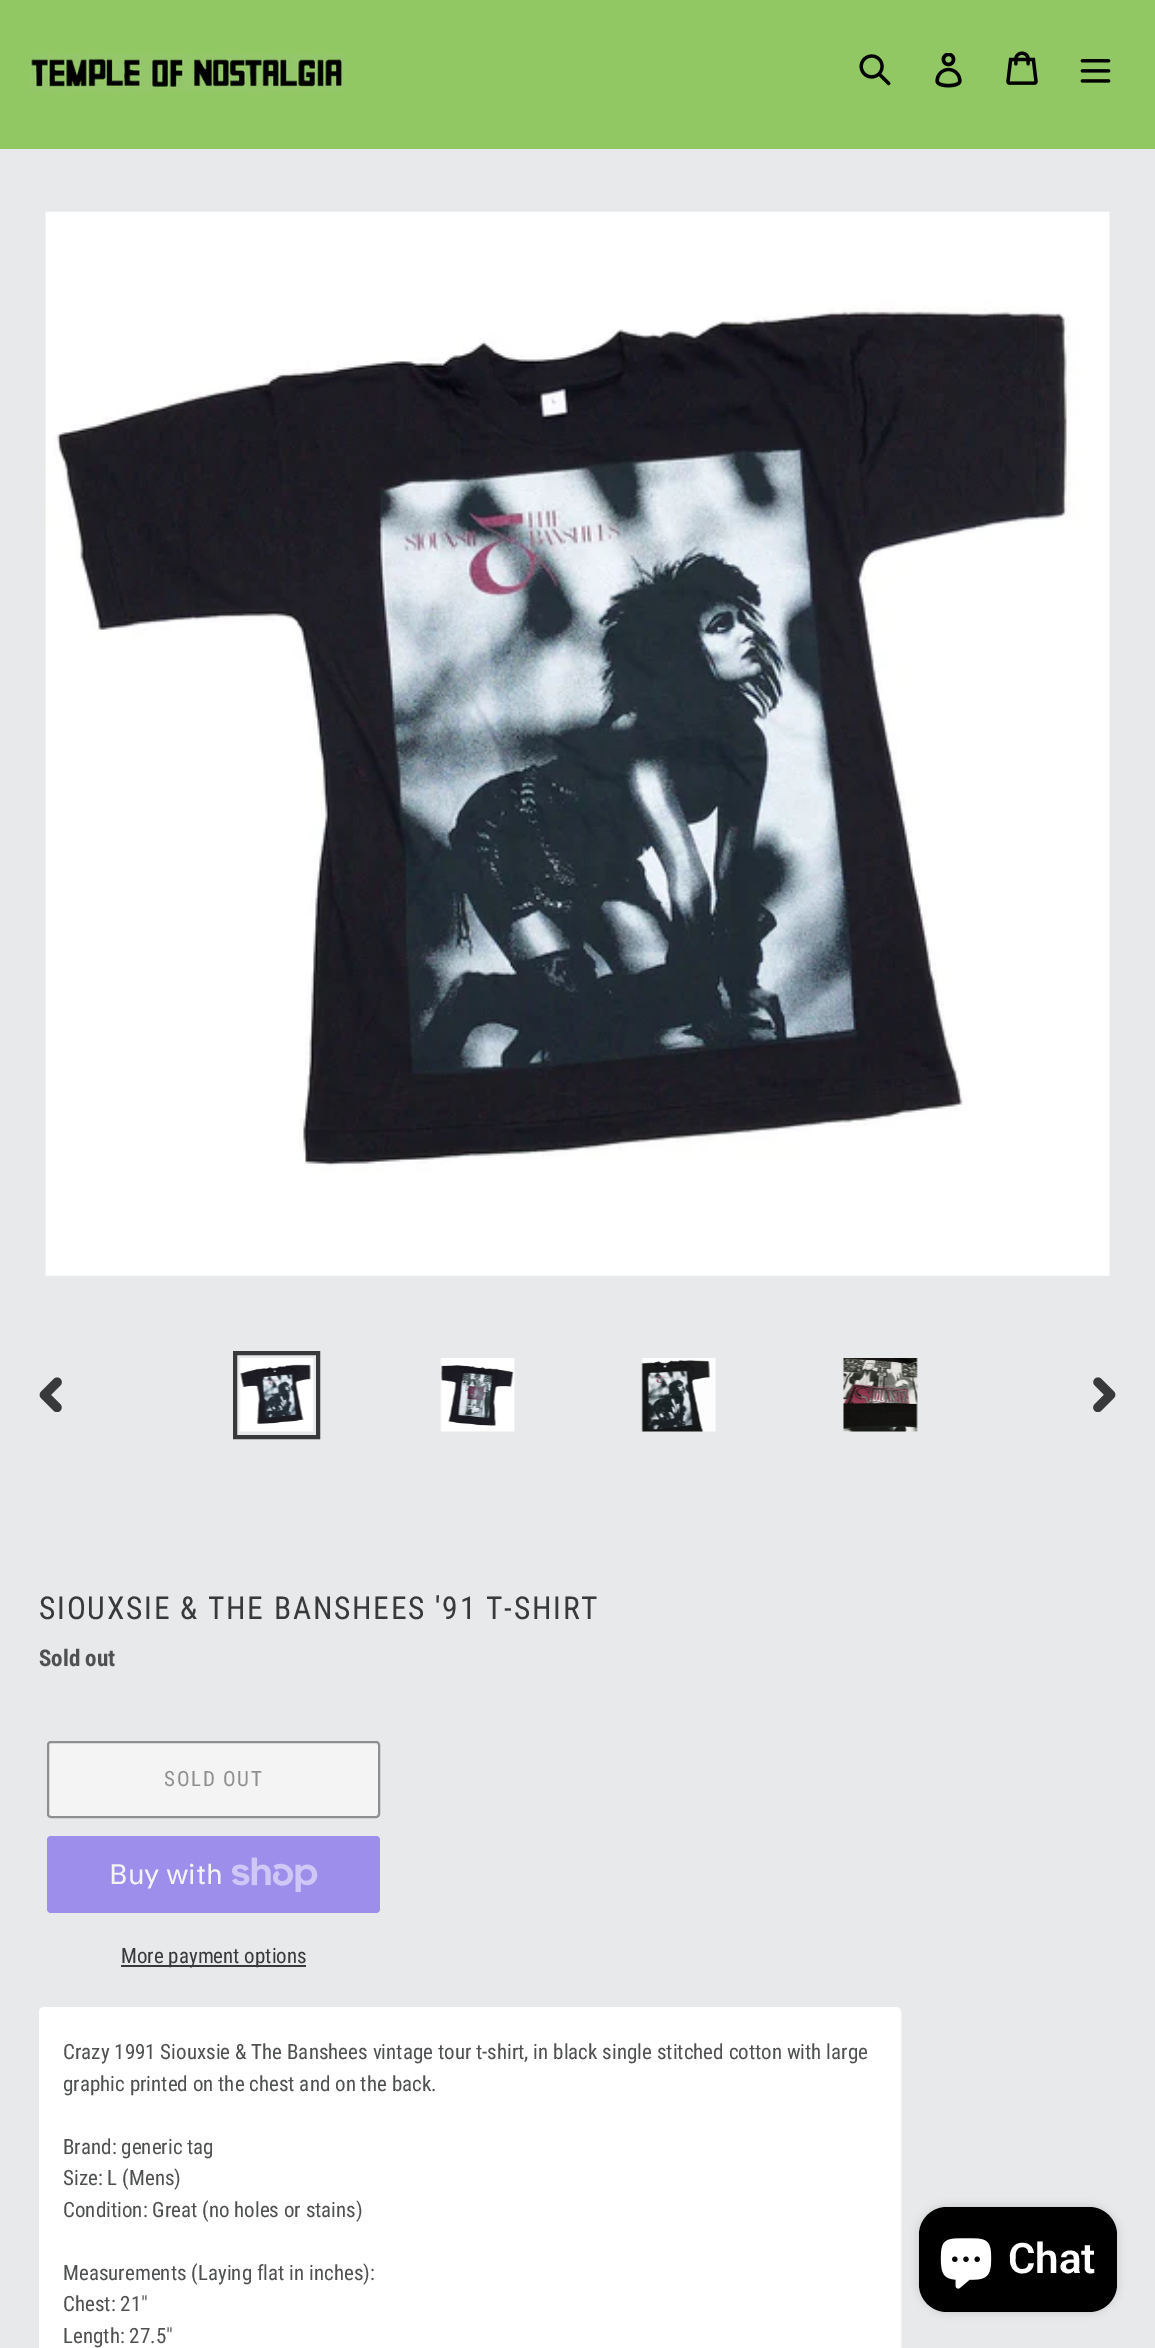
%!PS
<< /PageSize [1155 2348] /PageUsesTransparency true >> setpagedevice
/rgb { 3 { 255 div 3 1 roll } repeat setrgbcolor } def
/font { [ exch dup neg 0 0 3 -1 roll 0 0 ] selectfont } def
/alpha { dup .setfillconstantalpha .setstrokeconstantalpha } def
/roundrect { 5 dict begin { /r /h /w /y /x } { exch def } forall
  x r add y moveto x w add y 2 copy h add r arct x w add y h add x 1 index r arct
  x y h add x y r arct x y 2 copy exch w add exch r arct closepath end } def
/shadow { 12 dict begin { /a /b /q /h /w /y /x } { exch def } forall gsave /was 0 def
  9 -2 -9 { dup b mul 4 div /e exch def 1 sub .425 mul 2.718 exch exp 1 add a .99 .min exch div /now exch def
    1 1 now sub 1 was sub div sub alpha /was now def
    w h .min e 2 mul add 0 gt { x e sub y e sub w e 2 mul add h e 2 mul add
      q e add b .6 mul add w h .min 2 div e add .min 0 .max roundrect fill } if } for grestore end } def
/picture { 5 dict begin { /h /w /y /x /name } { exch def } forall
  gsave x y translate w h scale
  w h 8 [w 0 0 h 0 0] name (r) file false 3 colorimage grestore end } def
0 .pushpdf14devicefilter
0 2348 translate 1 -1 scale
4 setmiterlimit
232 233 235 rgb
0 0 1155 2348 rectfill
146 200 99 rgb
0 0 1155 149 rectfill
(img/1.rgb) 30 54 315 37 picture
(img/2.rgb) 859 54 32 32 picture
(img/3.rgb) 935 53 27 35 picture
(img/4.rgb) 1006 51 32 34 picture
(img/5.rgb) 1080 59 31 24 picture
(img/6.rgb) 45 211 1065 1065 picture
(img/7.rgb) 39 1377 23 35 picture
56 57 58 rgb
4 setlinewidth
235 1353 83 84 rectstroke
(img/8.rgb) 239 1358 75 74 picture
(img/9.rgb) 440 1358 75 74 picture
(img/10.rgb) 641 1358 75 74 picture
(img/11.rgb) 843 1358 75 74 picture
(img/12.rgb) 1093 1377 23 35 picture
244 244 245 rgb
48 1742 331 75 3 roundrect gsave fill grestore
143 143 144 rgb
2 setlinewidth
stroke
158 142 235 rgb
47 1836 333 77 4 roundrect fill
(img/13.rgb) 232 1857 86 35 picture
56 57 58 rgb
121 1965 185 2 rectfill
255 255 255 rgb
41 2009 858 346 3 roundrect gsave fill grestore
4 setlinewidth
stroke
0 0 0 rgb
919 2207 198 105 28 4.5 0.15 shadow
919 2207 198 105 28 roundrect fill
(img/14.rgb) 940 2238 52 51 picture
/RobotoCondensed-Regular 31.5 font
56 57 58 rgb
39 1619 moveto 1.75 0 (SIOUXSIE & THE BANSHEES '91 T-SHIRT) ashow
/RobotoCondensed-Bold 23 font
79 80 81 rgb
39 1666 moveto (Sold out) show
/RobotoCondensed-Regular 21 font
143 143 144 rgb
164 1786 moveto 1.75 0 (SOLD OUT) ashow
/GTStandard-Regular 28 font
244 244 245 rgb
109 1884 moveto (Buy with) show
/RobotoCondensed-Regular 21 font
56 57 58 rgb
121 1963 moveto (More payment options) show
79 80 81 rgb
[
  [(Crazy 1991 Siouxsie & The Banshees vintage tour t-shirt, in black single stitched cotton with large) 63 2059]
  [(graphic printed on the chest and on the back.) 63 2091]
  [(Brand: generic tag) 63 2154]
  [(Size: L \(Mens\)) 63 2185]
  [(Condition: Great \(no holes or stains\)) 63 2217]
  [(Measurements \(Laying flat in inches\):) 63 2280]
  [(Chest: 21") 63 2311]
  [(Length: 27.5") 63 2343]
] { aload pop moveto show } forall
/Roboto-SemiBold 42 font
255 255 255 rgb
1008 2273 moveto (Chat) show
.poppdf14devicefilter showpage
